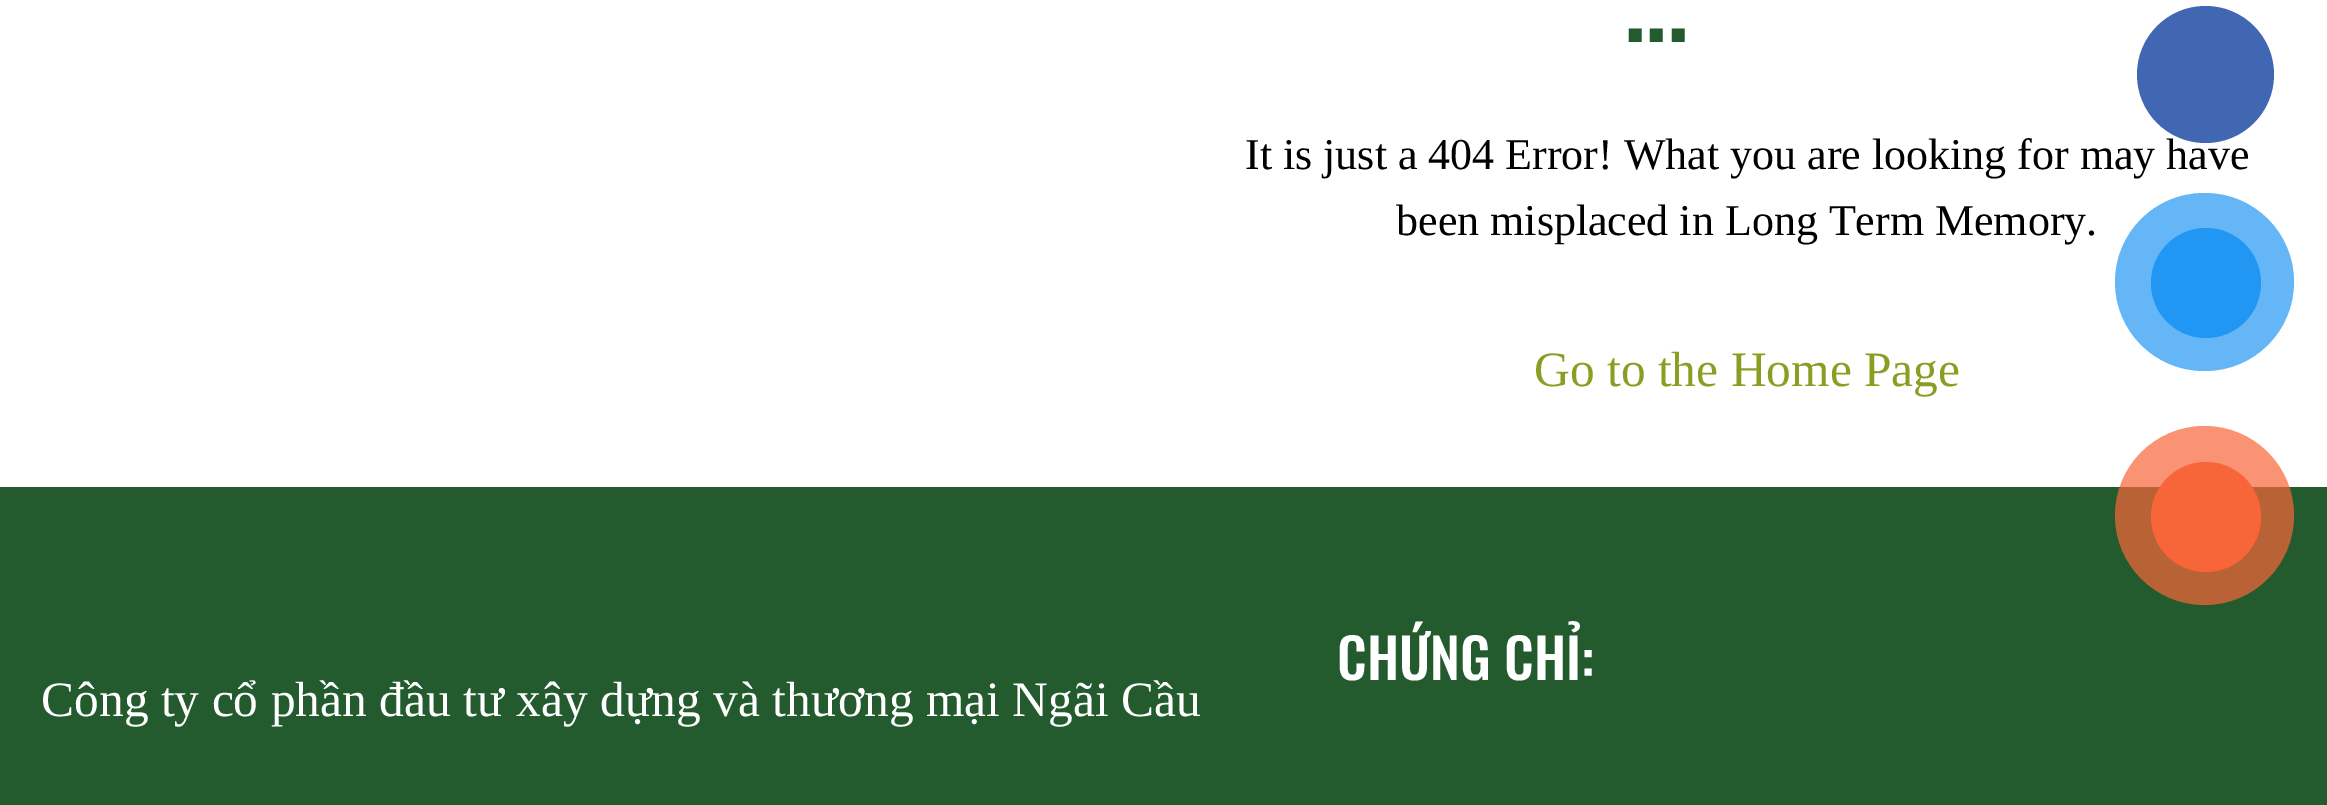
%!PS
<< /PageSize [2327 805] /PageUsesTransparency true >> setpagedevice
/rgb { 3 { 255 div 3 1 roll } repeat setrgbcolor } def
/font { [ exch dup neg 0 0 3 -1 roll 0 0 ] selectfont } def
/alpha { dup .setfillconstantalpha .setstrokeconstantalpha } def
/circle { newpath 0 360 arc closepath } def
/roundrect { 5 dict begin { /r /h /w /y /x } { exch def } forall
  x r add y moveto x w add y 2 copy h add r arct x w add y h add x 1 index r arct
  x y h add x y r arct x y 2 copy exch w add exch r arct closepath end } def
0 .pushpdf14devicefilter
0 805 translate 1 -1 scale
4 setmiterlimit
255 255 255 rgb
0 0 2327 805 rectfill
100 182 247 rgb
2115 193 179 178 89 roundrect fill
33 150 243 rgb
2206 283 55 circle fill
35 90 46 rgb
0 487 2327 318 rectfill
0.7 alpha
247 101 56 rgb
2204.5 515.5 89.5 circle fill
1 alpha
2206 517 55 circle fill
/Oswald-Medium 99 font
35 90 46 rgb
1624 42 moveto (...) show
/LiberationSerif-Regular 44 font
0 0 0 rgb
1245 169 moveto (It is just a 404 Error! What you are looking for may have) show
66 103 178 rgb
2205.5 74.5 68.5 circle fill
0 0 0 rgb
1396 235 moveto (been misplaced in Long Term Memory.) show
/LiberationSerif-Regular 49.5 font
136 159 36 rgb
1534 386 moveto (Go to the Home Page) show
/Oswald-Medium 55 font
255 255 255 rgb
1337 680 moveto (CHỨNG CHỈ:) show
/LiberationSerif-Regular 49.5 font
41 716 moveto (Công ty cổ phần đầu tư xây dựng và thương mại Ngãi Cầu) show
.poppdf14devicefilter showpage
